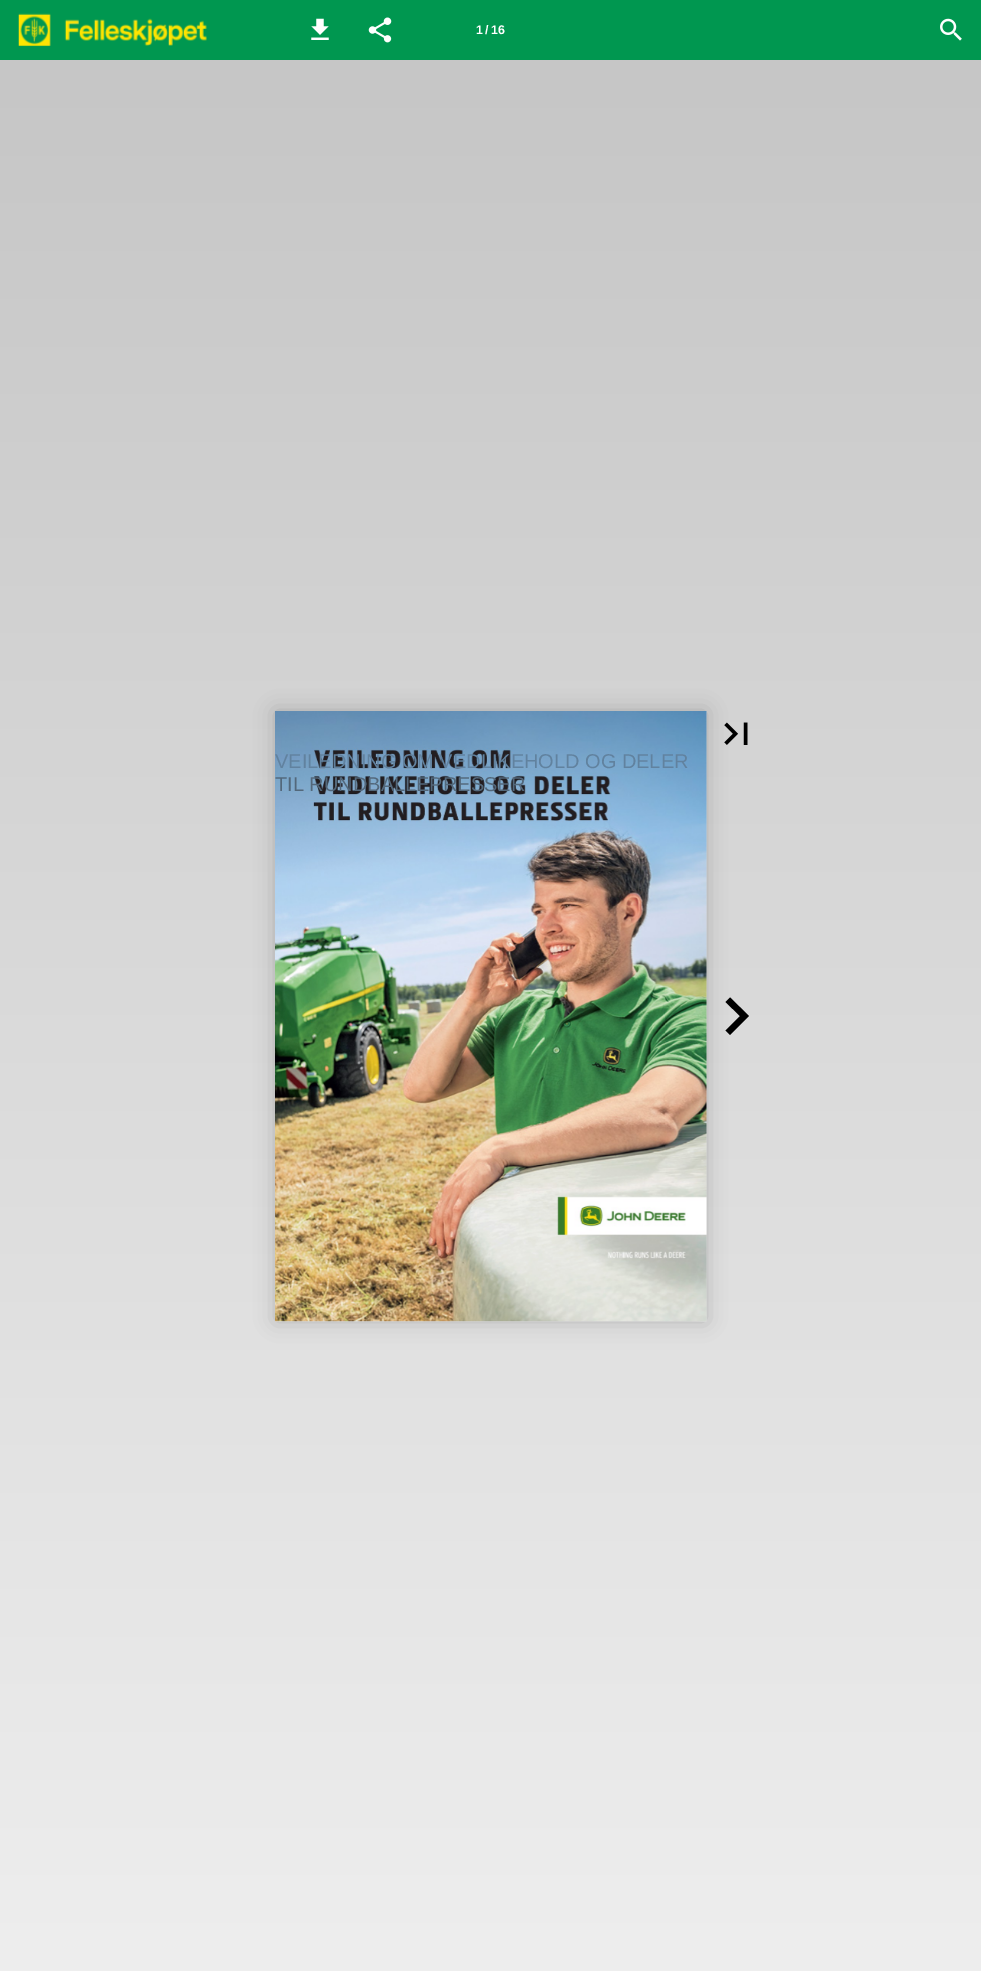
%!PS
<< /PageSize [981 1971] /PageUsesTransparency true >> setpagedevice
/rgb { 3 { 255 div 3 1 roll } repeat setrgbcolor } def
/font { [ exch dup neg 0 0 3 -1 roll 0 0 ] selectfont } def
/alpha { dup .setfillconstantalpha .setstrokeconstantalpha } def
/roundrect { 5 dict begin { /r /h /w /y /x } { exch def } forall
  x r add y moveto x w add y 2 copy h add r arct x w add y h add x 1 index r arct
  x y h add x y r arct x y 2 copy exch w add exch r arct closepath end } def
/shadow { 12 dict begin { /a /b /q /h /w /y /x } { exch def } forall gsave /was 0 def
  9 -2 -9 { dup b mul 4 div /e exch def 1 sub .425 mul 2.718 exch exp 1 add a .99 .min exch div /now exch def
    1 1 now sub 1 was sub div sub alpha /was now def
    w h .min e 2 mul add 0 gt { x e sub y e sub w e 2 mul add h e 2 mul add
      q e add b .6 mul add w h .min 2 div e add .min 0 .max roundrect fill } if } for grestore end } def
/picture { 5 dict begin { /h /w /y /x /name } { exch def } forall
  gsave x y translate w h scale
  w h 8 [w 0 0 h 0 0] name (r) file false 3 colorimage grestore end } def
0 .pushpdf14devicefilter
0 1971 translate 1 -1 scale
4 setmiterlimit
255 255 255 rgb
0 0 981 1971 rectfill
0 151 80 rgb
0 0 981 60 rectfill
(img/1.rgb) 18 13 189 34 picture
(img/2.rgb) 311 18 18 22 picture
(img/3.rgb) 368 17 24 26 picture
(img/4.rgb) 940 18 22 23 picture
gsave 0 60 moveto 981 60 lineto 981 1971 lineto 0 1971 lineto closepath clip newpath
<< /ShadingType 2 /ColorSpace /DeviceRGB /Coords [491 60 491 1971] /Extend [true true] /Function << /FunctionType 2 /Domain [0 1] /C0 [0.776 0.776 0.776] /C1 [0.933 0.933 0.933] /N 1 >> >> shfill grestore
0 0 0 rgb
275 711 431 610 0 10 0.2 shadow
(img/5.rgb) 275 711 432 611 picture
(img/6.rgb) 724 722 24 23 picture
730 997.5 moveto 725.5 1002 lineto 740 1016 lineto 725.5 1030.5 lineto 730 1035 lineto 749 1016 lineto closepath fill
/LiberationSans-Bold 12.5 font
255 255 255 rgb
476 34 moveto (1 / 16) show
/LiberationSans-Regular 20 font
97 130 159 rgb
275 768 moveto (VEILEDNING OM VEDLIKEHOLD OG DELER) show
83 104 123 rgb
275 791 moveto (TIL RUNDBALLEPRESSER) show
.poppdf14devicefilter showpage
